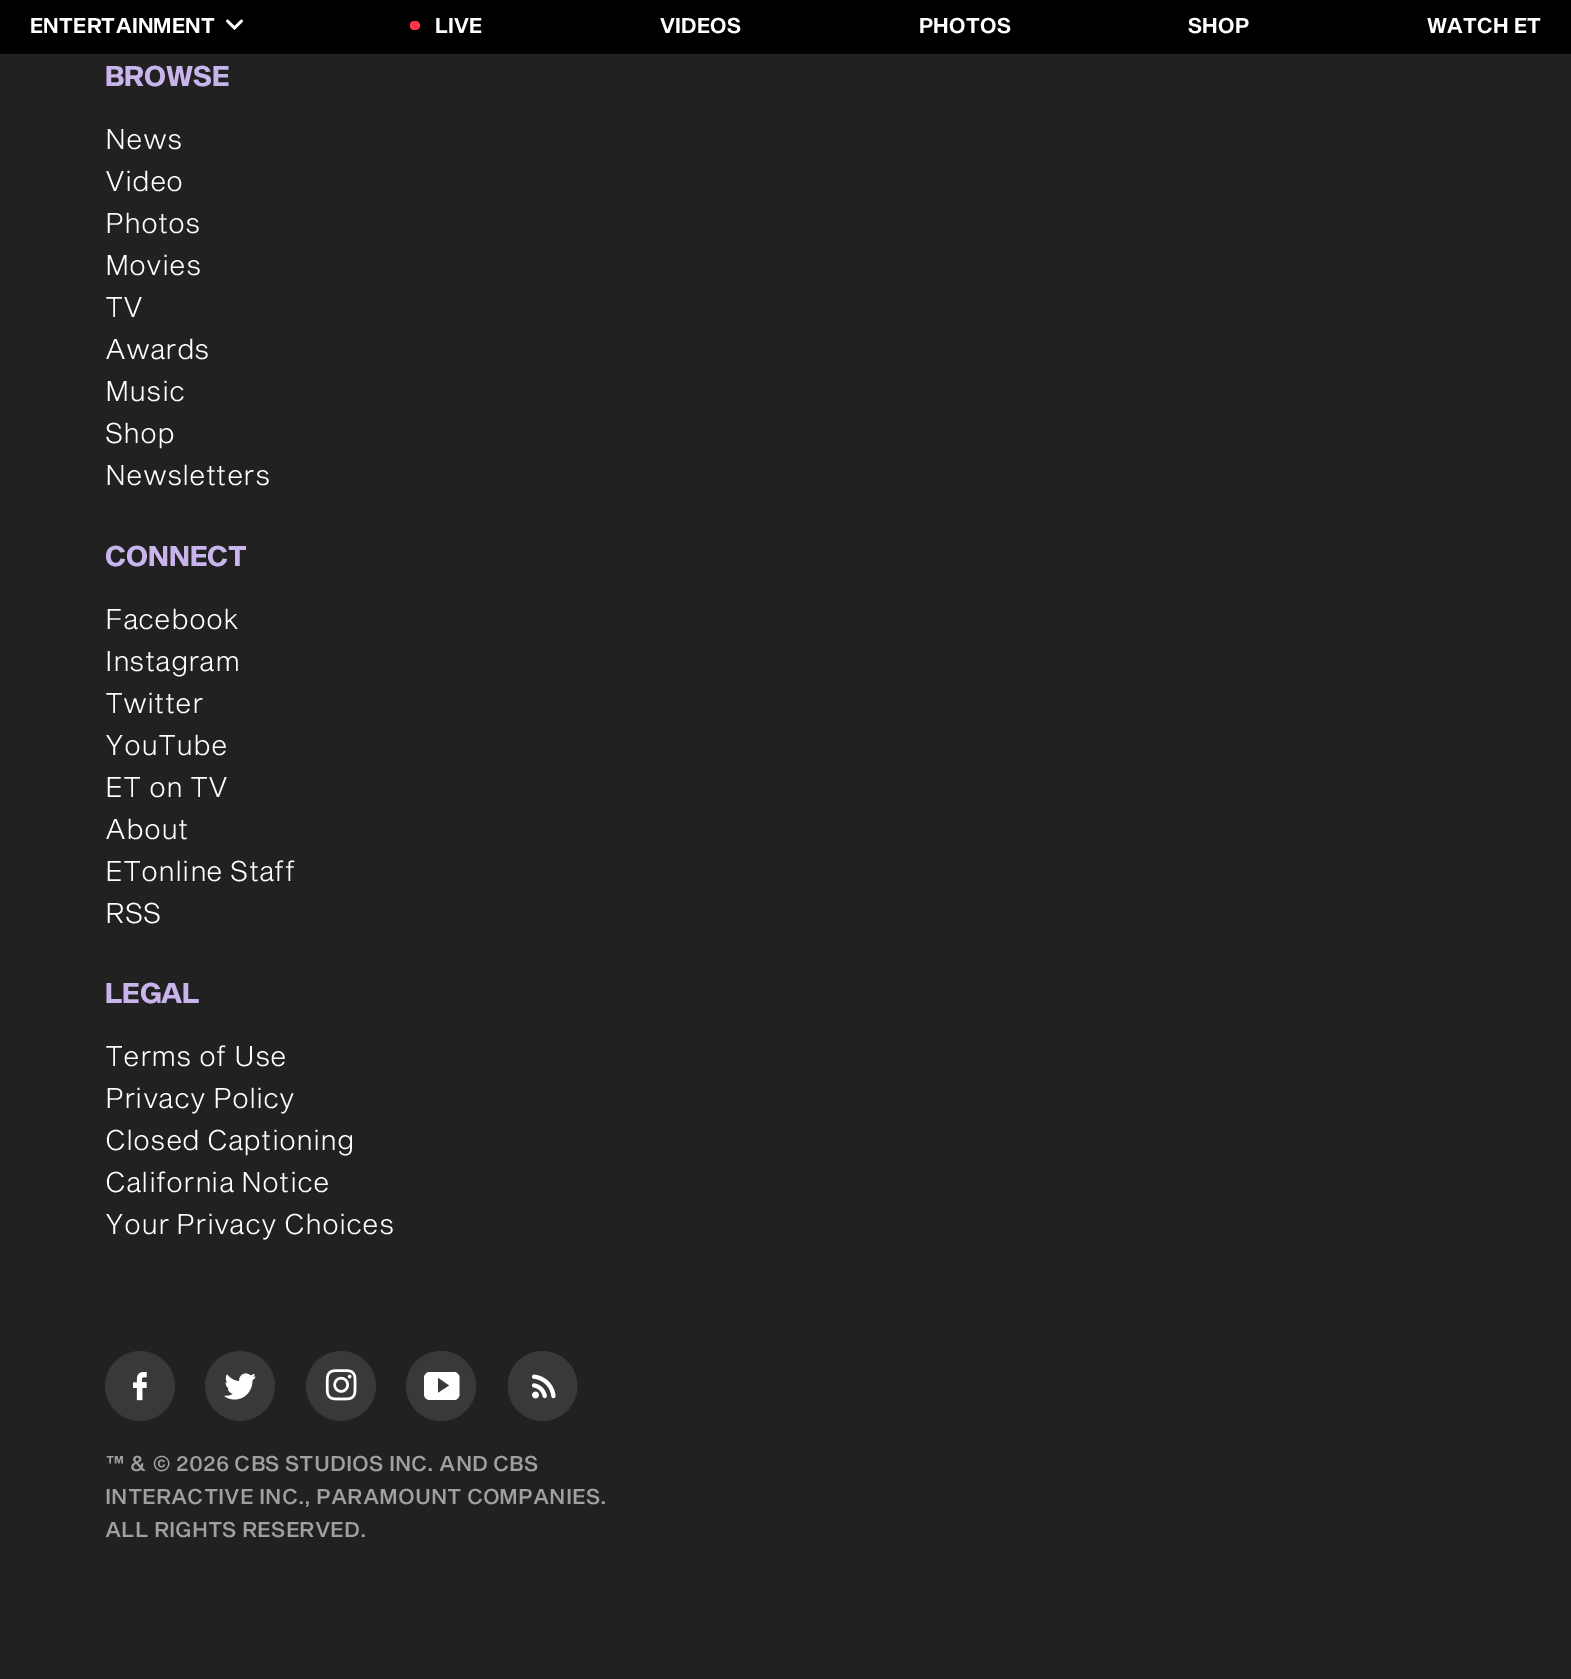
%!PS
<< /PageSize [1571 1679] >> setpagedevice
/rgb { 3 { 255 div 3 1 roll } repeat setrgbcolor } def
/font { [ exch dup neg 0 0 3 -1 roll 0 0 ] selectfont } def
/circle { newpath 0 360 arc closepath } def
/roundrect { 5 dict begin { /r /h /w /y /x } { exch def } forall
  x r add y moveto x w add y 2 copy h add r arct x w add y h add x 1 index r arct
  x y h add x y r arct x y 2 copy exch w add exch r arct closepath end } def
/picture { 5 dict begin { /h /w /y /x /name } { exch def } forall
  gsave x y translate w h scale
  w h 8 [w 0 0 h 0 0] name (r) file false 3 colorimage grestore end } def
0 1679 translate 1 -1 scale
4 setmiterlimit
33 33 33 rgb
0 0 1571 1679 rectfill
0 0 0 rgb
0 0 1571 54 rectfill
255 255 255 rgb
2.6 setlinewidth
1 setlinecap
241.5 21 moveto 234.5 28 lineto 227.5 21 lineto stroke
255 53 69 rgb
415.5 25.5 4.5 circle fill
410 21 8 9 4 roundrect fill
(img/1.rgb) 105 1351 70 70 picture
(img/2.rgb) 205 1351 70 70 picture
(img/3.rgb) 306 1351 70 70 picture
57 57 57 rgb
441 1386 35 circle fill
255 255 255 rgb
454 1372 moveto 430 1372 lineto 426.5 1372 424 1375 424 1378 curveto 424 1394 lineto 424 1397.5 426.5 1400 430 1400 curveto 454 1400 lineto 457 1400 459.5 1397.5 459.5 1394 curveto 459.5 1378 lineto 459.5 1375 457 1372 454 1372 curveto closepath 438 1393 moveto 438 1377.5 lineto 449.5 1385.5 lineto closepath fill
(img/4.rgb) 508 1351 70 70 picture
/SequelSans-SemiBold 21 font
30 33 moveto 0.3 0 (ENTERTAINMENT) ashow
435 33 moveto 0.3 0 (LIVE) ashow
660 33 moveto 0.3 0 (VIDEOS) ashow
919 33 moveto 0.3 0 (PHOTOS) ashow
1188 33 moveto 0.3 0 (SHOP) ashow
1427 33 moveto 0.3 0 (WATCH ET) ashow
/SequelSans-Bold 28 font
201 180 236 rgb
105 86 moveto (BROWSE) show
/SequelSans-Light 28 font
255 255 255 rgb
[
  [(News) 105 149]
  [(Video) 105 191]
  [(Photos) 105 233]
  [(Movies) 105 275]
  [(TV) 105 317]
  [(Awards) 105 359]
  [(Music) 105 401]
  [(Shop) 105 443]
  [(Newsletters) 105 485]
] { aload pop moveto show } forall
/SequelSans-Bold 28 font
201 180 236 rgb
105 566 moveto (CONNECT) show
/SequelSans-Light 28 font
255 255 255 rgb
[
  [(Facebook) 105 629]
  [(Instagram) 105 671]
  [(Twitter) 105 713]
  [(YouTube) 105 755]
  [(ET on TV) 105 797]
  [(About) 105 839]
  [(ETonline Staff) 105 881]
  [(RSS) 105 923]
] { aload pop moveto show } forall
/SequelSans-Bold 28 font
201 180 236 rgb
105 1003 moveto (LEGAL) show
/SequelSans-Light 28 font
255 255 255 rgb
[
  [(Terms of Use) 105 1066]
  [(Privacy Policy) 105 1108]
  [(Closed Captioning) 105 1150]
  [(California Notice) 105 1192]
  [(Your Privacy Choices) 105 1234]
] { aload pop moveto show } forall
/SequelSans-Medium 21 font
160 160 160 rgb
[
  [(™ & © 2026 CBS STUDIOS INC. AND CBS) 105 1471]
  [(INTERACTIVE INC., PARAMOUNT COMPANIES.) 105 1504]
  [(ALL RIGHTS RESERVED.) 105 1537]
] { aload pop moveto show } forall
showpage
